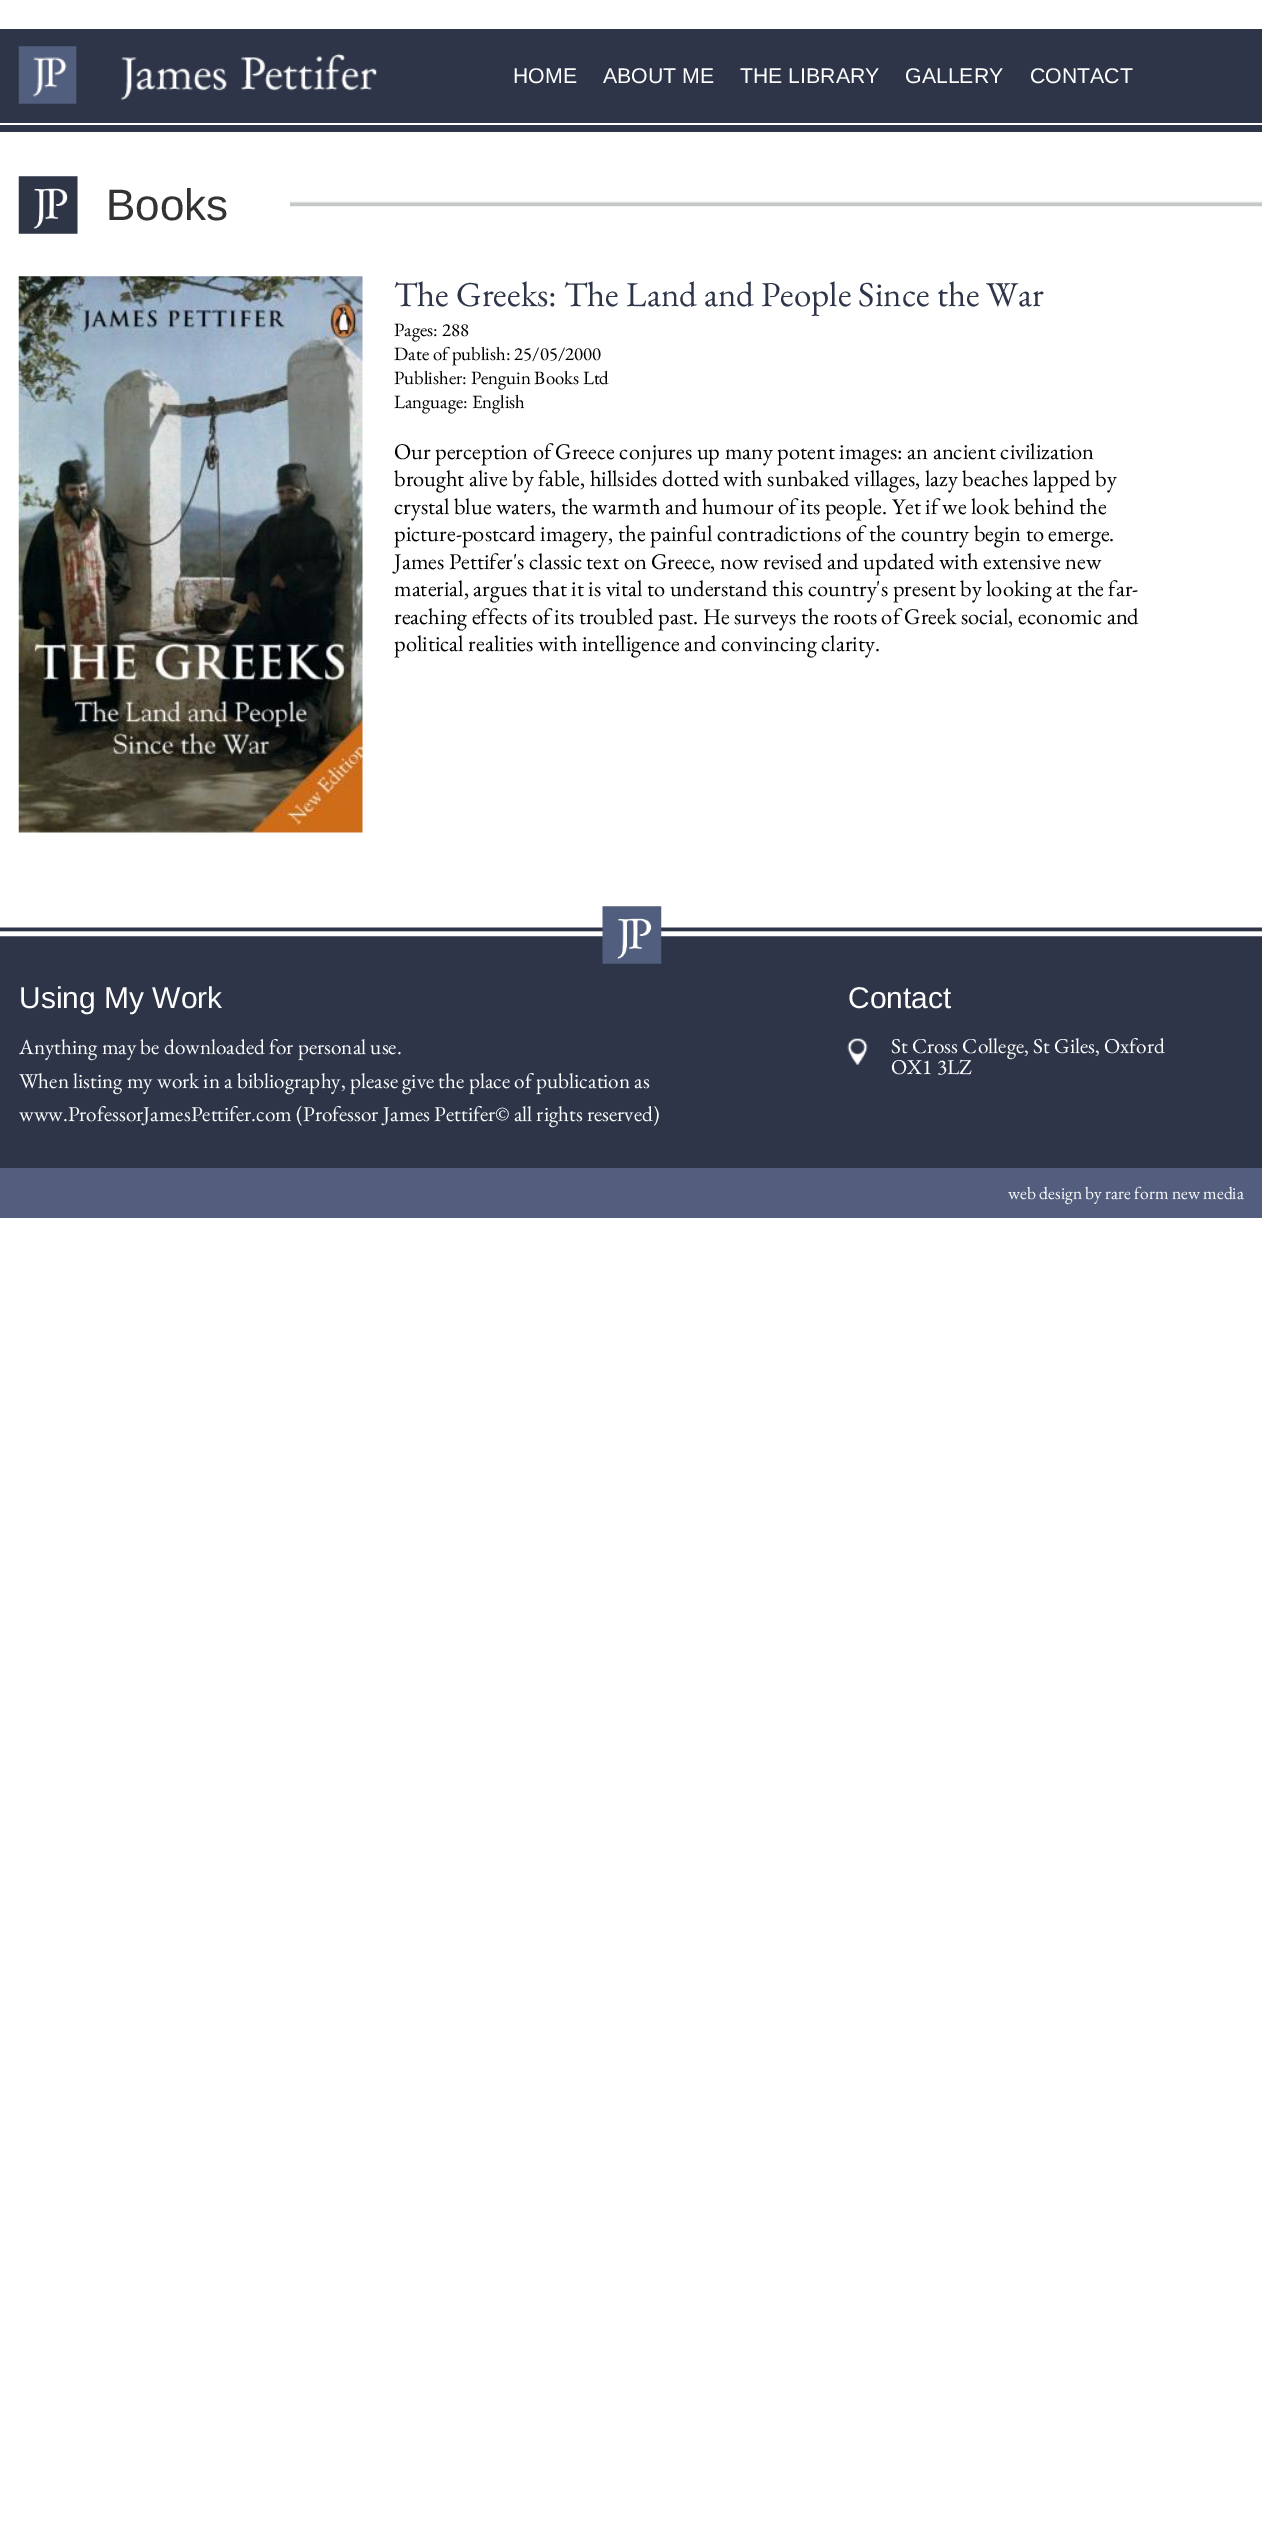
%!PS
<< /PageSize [1262 2545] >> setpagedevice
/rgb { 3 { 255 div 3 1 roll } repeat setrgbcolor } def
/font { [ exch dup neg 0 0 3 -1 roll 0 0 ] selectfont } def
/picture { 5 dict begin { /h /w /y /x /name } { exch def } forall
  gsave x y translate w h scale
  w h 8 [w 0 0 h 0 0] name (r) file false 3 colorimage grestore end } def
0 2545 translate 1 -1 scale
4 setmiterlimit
255 255 255 rgb
0 0 1262 2545 rectfill
46 53 72 rgb
0 29 1262 94 rectfill
(img/1.rgb) 18 46 359 58 picture
0 125 1262 7 rectfill
(img/2.rgb) 290 201 972 6 picture
(img/3.rgb) 18 176 60 58 picture
(img/4.rgb) 18 276 345 557 picture
0 936 1262 232 rectfill
(img/5.rgb) 0 927 1262 10 picture
(img/6.rgb) 602 906 60 58 picture
(img/7.rgb) 847 1038 21 27 picture
83 94 126 rgb
0 1168 1262 50 rectfill
/LiberationSans-Regular 21.25 font
255 255 255 rgb
[
  [(HOME) 513 83]
  [(ABOUT ME) 603 83]
  [(THE LIBRARY) 740 83]
  [(GALLERY) 905 83]
  [(CONTACT) 1030 83]
] { aload pop moveto show } forall
/LiberationSans-Regular 44 font
51 51 51 rgb
106 220 moveto (Books) show
/EBGaramond-Regular 35 font
46 53 72 rgb
394 306 moveto (The Greeks: The Land and People Since the War) show
/EBGaramond-Regular 18.75 font
0 0 0 rgb
[
  [(Pages: 288) 394 336]
  [(Date of publish: 25/05/2000) 394 360]
  [(Publisher: Penguin Books Ltd) 394 384]
  [(Language: English) 394 408]
] { aload pop moveto show } forall
/EBGaramond-Regular 22.5 font
[
  [(Our perception of Greece conjures up many potent images: an ancient civilization) 394 459]
  [(brought alive by fable, hillsides dotted with sunbaked villages, lazy beaches lapped by) 394 486]
  [(crystal blue waters, the warmth and humour of its people. Yet if we look behind the) 394 514]
  [(picture-postcard imagery, the painful contradictions of the country begin to emerge.) 394 541]
  [(James Pettifer's classic text on Greece, now revised and updated with extensive new) 394 569]
  [(material, argues that it is vital to understand this country's present by looking at the far-) 394 596]
  [(reaching effects of its troubled past. He surveys the roots of Greek social, economic and) 394 624]
  [(political realities with intelligence and convincing clarity.) 394 651]
] { aload pop moveto show } forall
/LiberationSans-Regular 30 font
255 255 255 rgb
19 1008 moveto (Using My Work) show
/EBGaramond-Regular 21.25 font
[
  [(Anything may be downloaded for personal use.) 19 1054]
  [(When listing my work in a bibliography, please give the place of publication as) 19 1088]
  [(www.ProfessorJamesPettifer.com \(Professor James Pettifer© all rights reserved\)) 19 1121]
] { aload pop moveto show } forall
/LiberationSans-Regular 30 font
848 1008 moveto (Contact) show
/EBGaramond-Regular 21.25 font
891 1053 moveto (St Cross College, St Giles, Oxford) show
891 1074 moveto (OX1 3LZ) show
/EBGaramond-Regular 17.5 font
1008 1199 moveto (web design by rare form new media) show
showpage
